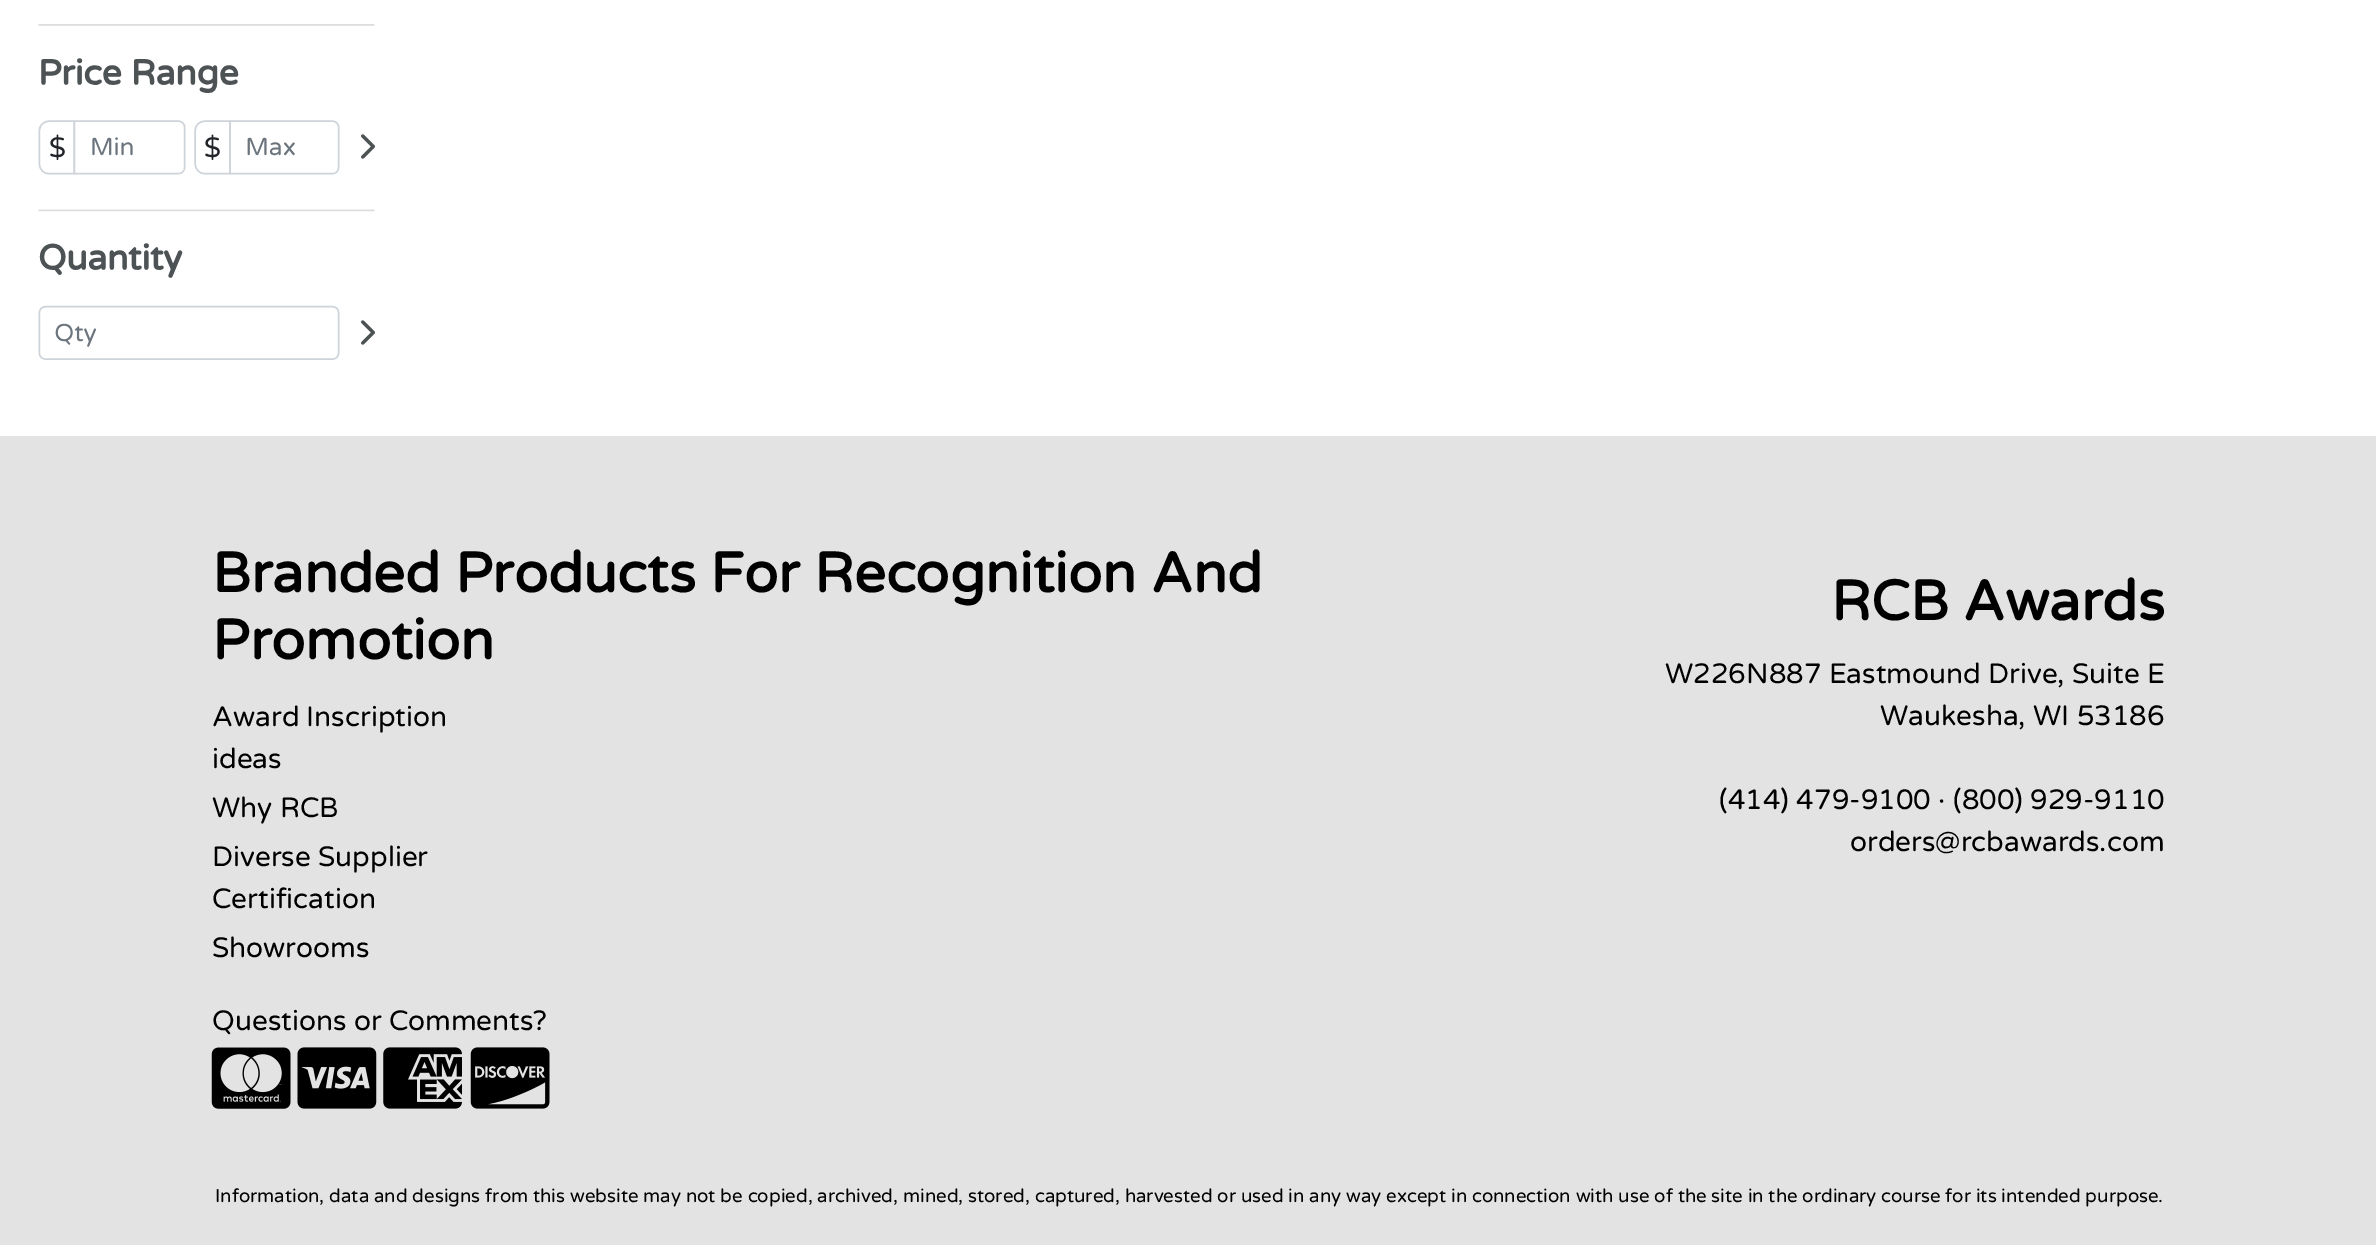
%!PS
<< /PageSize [2376 1245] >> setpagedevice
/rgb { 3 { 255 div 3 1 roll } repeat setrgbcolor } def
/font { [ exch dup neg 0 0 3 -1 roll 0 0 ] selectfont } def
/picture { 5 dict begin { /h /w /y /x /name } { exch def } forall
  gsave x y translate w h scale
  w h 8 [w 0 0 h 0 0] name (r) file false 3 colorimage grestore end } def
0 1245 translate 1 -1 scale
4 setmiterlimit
255 255 255 rgb
0 0 2376 1245 rectfill
(img/1.rgb) 38 24 337 336 picture
227 227 227 rgb
0 436 2376 809 rectfill
(img/2.rgb) 211 1047 80 62 picture
(img/3.rgb) 297 1047 80 62 picture
(img/4.rgb) 383 1047 79 62 picture
(img/5.rgb) 470 1047 80 62 picture
/VarelaRound-Bold 56 font
0 0 0 rgb
212 592 moveto (Branded Products For Recognition And) show
212 659 moveto (Promotion) show
/VarelaRound-Regular 28 font
[
  [(Award Inscription) 212 726]
  [(ideas) 212 768]
  [(Why RCB) 212 817]
  [(Diverse Supplier) 212 866]
  [(Certification) 212 908]
  [(Showrooms) 212 957]
  [(Questions or Comments?) 212 1030]
] { aload pop moveto show } forall
/VarelaRound-Bold 56 font
1831 620 moveto (RCB Awards) show
/VarelaRound-Regular 28 font
[
  [(W226N887 Eastmound Drive, Suite E) 1665 683]
  [(Waukesha, WI 53186) 1880 725]
  [(\(414\) 479-9100 · \(800\) 929-9110) 1719 809]
  [(orders@rcbawards.com) 1850 851]
] { aload pop moveto show } forall
/VarelaRound-Regular 18.67 font
215 1202 moveto (Information, data and designs from this website may not be copied, archived, mined, stored, captured, harvested or used in any way except in connection with use of the site in the ordinary course for its intended purpose.) show
showpage
